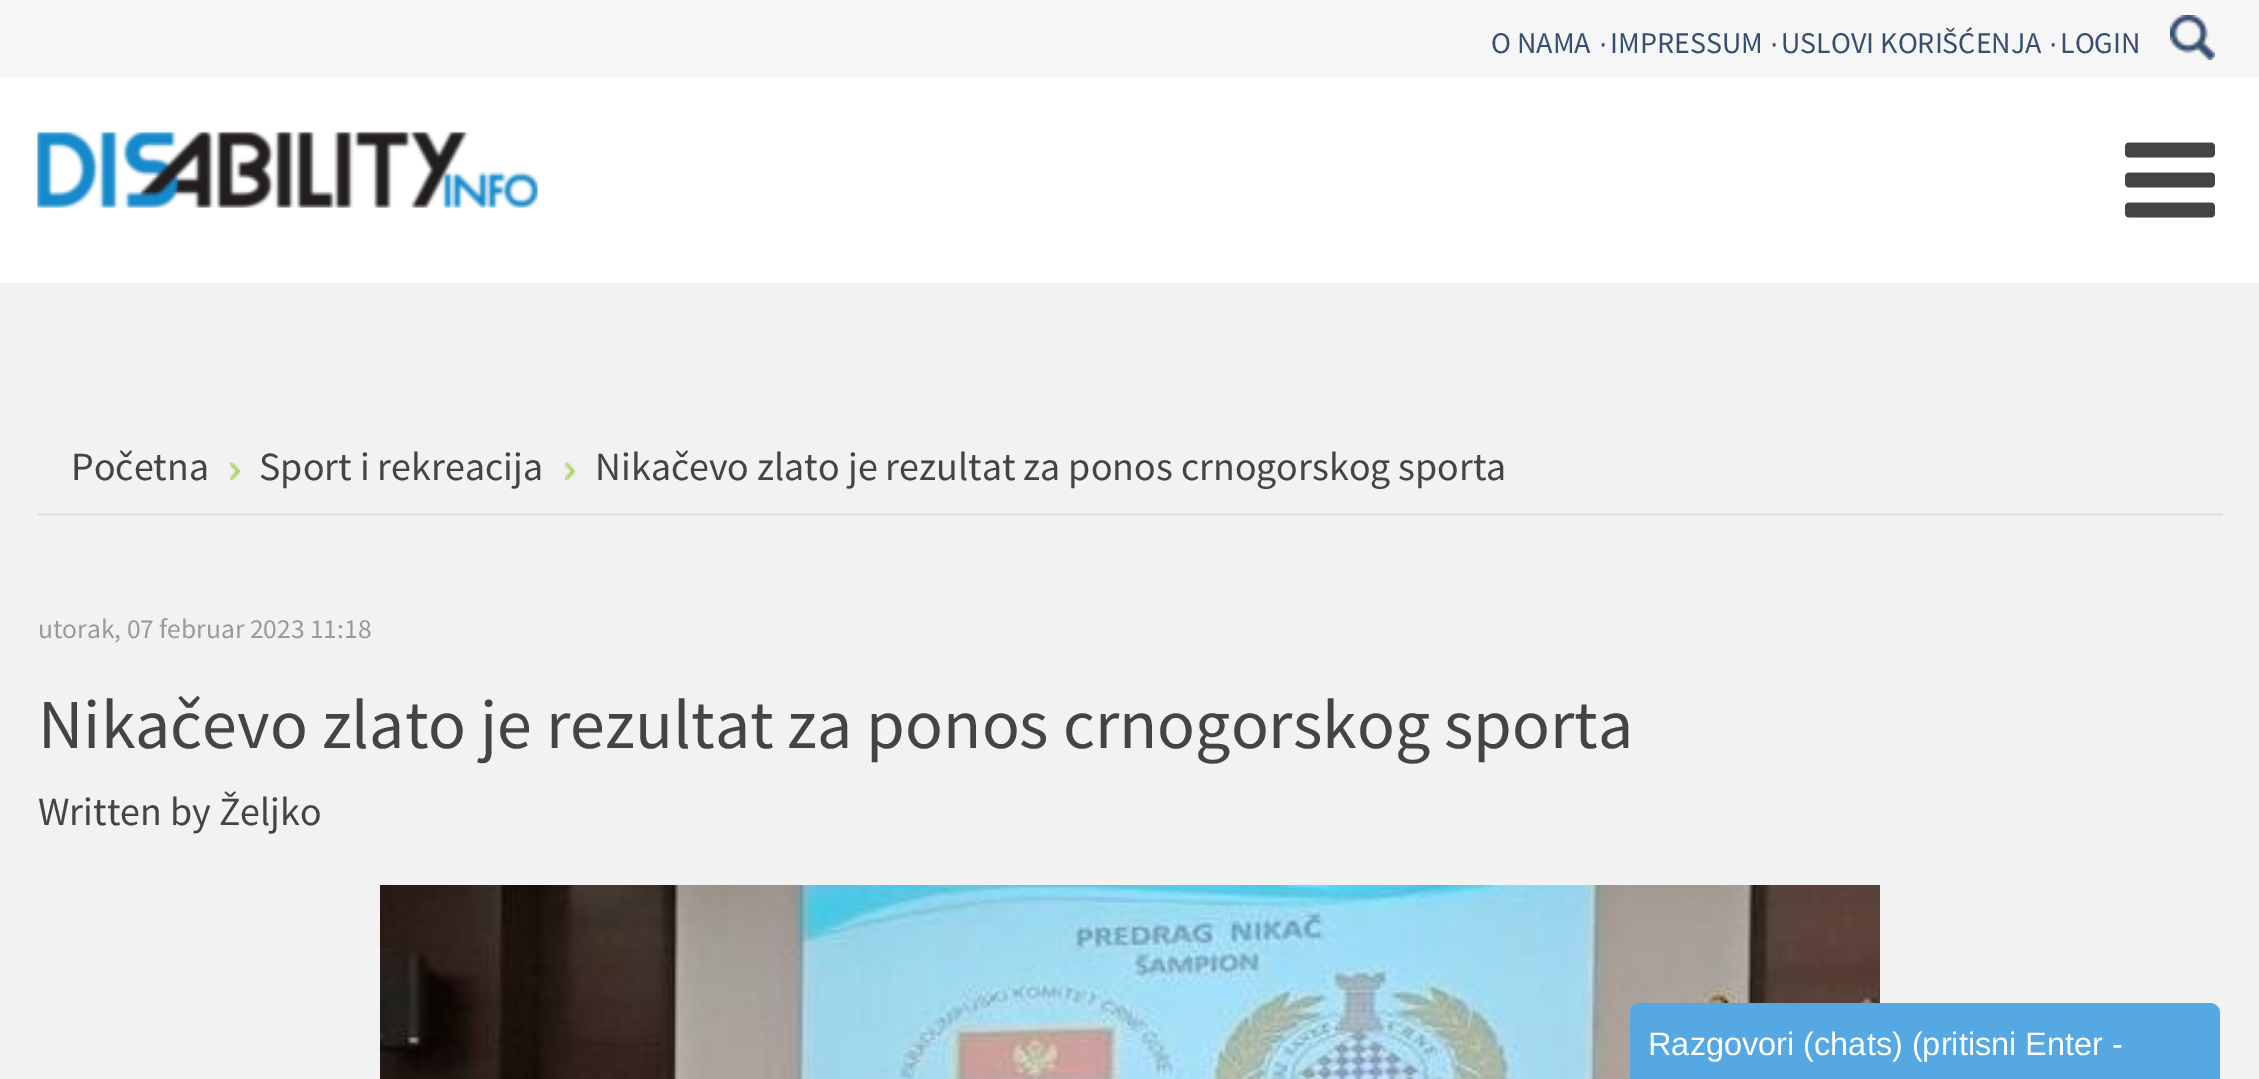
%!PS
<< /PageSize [2259 1079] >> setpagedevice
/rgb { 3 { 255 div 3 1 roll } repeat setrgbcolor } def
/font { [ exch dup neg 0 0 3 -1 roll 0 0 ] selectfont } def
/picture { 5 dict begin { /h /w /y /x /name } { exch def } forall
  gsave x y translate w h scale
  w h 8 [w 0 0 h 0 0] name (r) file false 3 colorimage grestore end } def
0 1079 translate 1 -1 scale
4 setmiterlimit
242 242 242 rgb
0 0 2259 1079 rectfill
246 246 246 rgb
0 0 2259 78 rectfill
(img/1.rgb) 2170 15 45 45 picture
255 255 255 rgb
0 78 2259 205 rectfill
(img/2.rgb) 37 131 501 77 picture
(img/3.rgb) 2125 142 90 76 picture
227 227 227 rgb
38 513 2185 3 rectfill
(img/4.rgb) 230 462 10 18 picture
(img/5.rgb) 565 462 10 18 picture
(img/6.rgb) 380 885 1500 194 picture
86 168 227 rgb
1640 1003 moveto 2210 1003 lineto 2215.5 1003 2220 1007.5 2220 1013 curveto 2220 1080 lineto 1630 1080 lineto 1630 1013 lineto 1630 1007.5 1634.5 1003 1640 1003 curveto closepath fill
/SourceSansPro-Regular 30 font
54 78 114 rgb
1491 53 moveto (O NAMA) show
/LiberationSans-Regular 30 font
1599 53 moveto (∙) show
/SourceSansPro-Regular 30 font
1610 53 moveto (IMPRESSUM) show
/LiberationSans-Regular 30 font
1770 53 moveto (∙) show
/SourceSansPro-Regular 30 font
1781 53 moveto (USLOVI KORIŠĆENJA) show
/LiberationSans-Regular 30 font
2049 53 moveto (∙) show
/SourceSansPro-Regular 30 font
2060 53 moveto (LOGIN) show
/SourceSansPro-Regular 40 font
68 68 68 rgb
[
  [(Početna) 71 480]
  [(Sport i rekreacija) 259 480]
  [(Nikačevo zlato je rezultat za ponos crnogorskog sporta) 595 480]
] { aload pop moveto show } forall
/SourceSansPro-Regular 27.5 font
153 153 153 rgb
38 638 moveto (utorak, 07 februar 2023 11:18) show
/SourceSansPro-Regular 70 font
68 68 68 rgb
38 748 moveto (Nikačevo zlato je rezultat za ponos crnogorskog sporta) show
/SourceSansPro-Regular 40 font
38 825 moveto (Written by Željko) show
/LiberationSans-Regular 32.5 font
255 255 255 rgb
1648 1055 moveto (Razgovori \(chats\) \(pritisni Enter -) show
showpage
